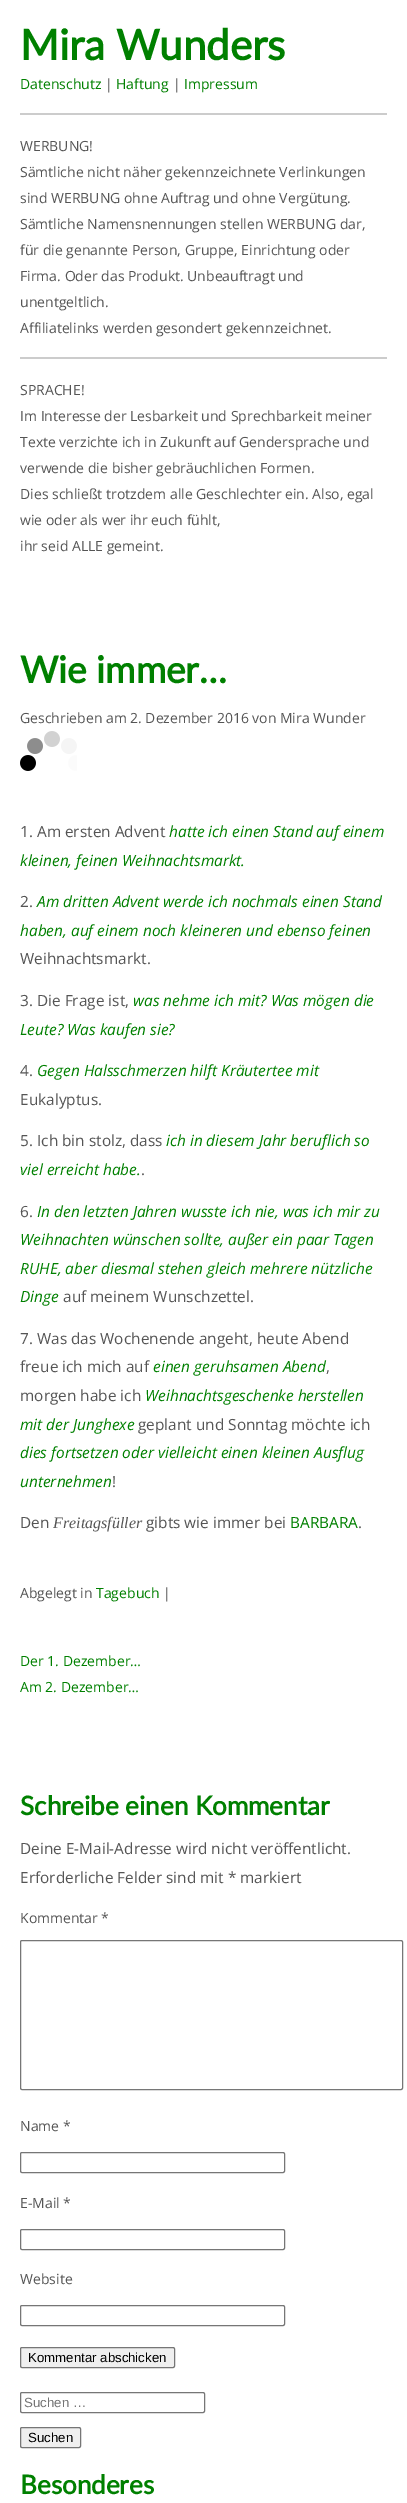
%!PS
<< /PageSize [407 2503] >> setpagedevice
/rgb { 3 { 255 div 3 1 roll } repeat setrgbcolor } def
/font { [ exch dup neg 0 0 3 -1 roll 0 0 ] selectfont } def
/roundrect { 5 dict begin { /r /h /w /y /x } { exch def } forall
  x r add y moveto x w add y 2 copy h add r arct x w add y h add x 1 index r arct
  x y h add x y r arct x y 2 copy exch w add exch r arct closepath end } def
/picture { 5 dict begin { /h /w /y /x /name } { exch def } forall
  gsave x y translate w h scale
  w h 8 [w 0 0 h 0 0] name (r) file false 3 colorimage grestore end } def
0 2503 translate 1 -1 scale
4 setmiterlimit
255 255 255 rgb
0 0 407 2503 rectfill
204 204 204 rgb
20 113 367 2 rectfill
20 357 367 2 rectfill
(img/1.rgb) 20 731 57 40 picture
118 118 118 rgb
20.5 1940.5 382 149 1.5 roundrect stroke
20.5 2152.5 264 20 1.5 roundrect stroke
20.5 2229.5 264 20 1.5 roundrect stroke
20.5 2305.5 264 20 1.5 roundrect stroke
239 239 239 rgb
20.5 2347.5 154 20 1.5 roundrect gsave fill grestore
118 118 118 rgb
stroke
20.5 2392.5 184 20 1.5 roundrect stroke
239 239 239 rgb
20.5 2427.5 60 20 1.5 roundrect gsave fill grestore
118 118 118 rgb
stroke
/Lato-Bold 42 font
0 128 0 rgb
20 60 moveto (Mira Wunders) show
/OpenSans-Regular 14 font
20 89 moveto (Datenschutz) show
85 85 85 rgb
105 89 moveto (|) show
0 128 0 rgb
116 89 moveto (Haftung) show
85 85 85 rgb
173 89 moveto (|) show
0 128 0 rgb
184 89 moveto (Impressum) show
85 85 85 rgb
[
  [(WERBUNG!) 20 151]
  [(Sämtliche nicht näher gekennzeichnete Verlinkungen) 20 177]
  [(sind WERBUNG ohne Auftrag und ohne Vergütung.) 20 203]
  [(Sämtliche Namensnennungen stellen WERBUNG dar,) 20 229]
  [(für die genannte Person, Gruppe, Einrichtung oder) 20 255]
  [(Firma. Oder das Produkt. Unbeauftragt und) 20 281]
  [(unentgeltlich.) 20 307]
  [(Affiliatelinks werden gesondert gekennzeichnet.) 20 333]
  [(SPRACHE!) 20 395]
  [(Im Interesse der Lesbarkeit und Sprechbarkeit meiner) 20 421]
  [(Texte verzichte ich in Zukunft auf Gendersprache und) 20 447]
  [(verwende die bisher gebräuchlichen Formen.) 20 473]
  [(Dies schließt trotzdem alle Geschlechter ein. Also, egal) 20 499]
  [(wie oder als wer ihr euch fühlt,) 20 525]
  [(ihr seid ALLE gemeint.) 20 551]
] { aload pop moveto show } forall
/Lato-Bold 37 font
0 128 0 rgb
20 683 moveto (Wie immer…) show
/OpenSans-Regular 14 font
85 85 85 rgb
20 723 moveto (Geschrieben am 2. Dezember 2016 von Mira Wunder) show
/OpenSans-Regular 15.4 font
20 837 moveto (1. Am ersten Advent) show
/OpenSans-Italic 15.4 font
0 128 0 rgb
169 837 moveto (hatte ich einen Stand auf einem) show
20 866 moveto (kleinen, feinen Weihnachtsmarkt.) show
/OpenSans-Regular 15.4 font
85 85 85 rgb
20 907 moveto (2.) show
/OpenSans-Italic 15.4 font
0 128 0 rgb
37 907 moveto (Am dritten Advent werde ich nochmals einen Stand) show
20 936 moveto (haben, auf einem noch kleineren und ebenso feinen) show
/OpenSans-Regular 15.4 font
85 85 85 rgb
20 964 moveto (Weihnachtsmarkt.) show
20 1006 moveto (3. Die Frage ist,) show
/OpenSans-Italic 15.4 font
0 128 0 rgb
133 1006 moveto (was nehme ich mit? Was mögen die) show
20 1035 moveto (Leute? Was kaufen sie?) show
/OpenSans-Regular 15.4 font
85 85 85 rgb
20 1076 moveto (4.) show
/OpenSans-Italic 15.4 font
0 128 0 rgb
37 1076 moveto (Gegen Halsschmerzen hilft Kräutertee mit) show
/OpenSans-Regular 15.4 font
85 85 85 rgb
20 1105 moveto (Eukalyptus.) show
20 1146 moveto (5. Ich bin stolz, dass) show
/OpenSans-Italic 15.4 font
0 128 0 rgb
166 1146 moveto (ich in diesem Jahr beruflich so) show
20 1175 moveto (viel erreicht habe.) show
/OpenSans-Regular 15.4 font
85 85 85 rgb
141 1175 moveto (.) show
20 1217 moveto (6.) show
/OpenSans-Italic 15.4 font
0 128 0 rgb
[
  [(In den letzten Jahren wusste ich nie, was ich mir zu) 37 1217]
  [(Weihnachten wünschen sollte, außer ein paar Tagen) 20 1245]
  [(RUHE, aber diesmal stehen gleich mehrere nützliche) 20 1274]
  [(Dinge) 20 1302]
] { aload pop moveto show } forall
/OpenSans-Regular 15.4 font
85 85 85 rgb
[
  [(auf meinem Wunschzettel.) 63 1302]
  [(7. Was das Wochenende angeht, heute Abend) 20 1344]
  [(freue ich mich auf) 20 1372]
] { aload pop moveto show } forall
/OpenSans-Italic 15.4 font
0 128 0 rgb
153 1372 moveto (einen geruhsamen Abend) show
/OpenSans-Regular 15.4 font
85 85 85 rgb
326 1372 moveto (,) show
20 1401 moveto (morgen habe ich) show
/OpenSans-Italic 15.4 font
0 128 0 rgb
145 1401 moveto (Weihnachtsgeschenke herstellen) show
20 1430 moveto (mit der Junghexe) show
/OpenSans-Regular 15.4 font
85 85 85 rgb
138 1430 moveto (geplant und Sonntag möchte ich) show
/OpenSans-Italic 15.4 font
0 128 0 rgb
20 1458 moveto (dies fortsetzen oder vielleicht einen kleinen Ausflug) show
20 1487 moveto (unternehmen) show
/OpenSans-Regular 15.4 font
85 85 85 rgb
112 1487 moveto (!) show
20 1528 moveto (Den) show
/LiberationSerif-Italic 16 font
53 1528 moveto (Freitagsfüller) show
/OpenSans-Regular 15.4 font
146 1528 moveto (gibts wie immer bei) show
0 128 0 rgb
290 1528 moveto (BARBARA) show
85 85 85 rgb
358 1528 moveto (.) show
/OpenSans-Regular 14 font
20 1598 moveto (Abgelegt in) show
0 128 0 rgb
96 1598 moveto (Tagebuch) show
85 85 85 rgb
163 1598 moveto (|) show
0 128 0 rgb
20 1666 moveto (Der 1. Dezember…) show
20 1692 moveto (Am 2. Dezember…) show
/Lato-Bold 26 font
20 1815 moveto (Schreibe einen Kommentar) show
/OpenSans-Regular 15.4 font
85 85 85 rgb
20 1854 moveto (Deine E-Mail-Adresse wird nicht veröffentlicht.) show
20 1883 moveto (Erforderliche Felder sind mit * markiert) show
/OpenSans-Regular 14 font
[
  [(Kommentar *) 20 1923]
  [(Name *) 20 2131]
  [(E-Mail *) 20 2208]
  [(Website) 20 2284]
] { aload pop moveto show } forall
/LiberationSans-Regular 13.25 font
0 0 0 rgb
28 2362 moveto (Kommentar abschicken) show
117 117 117 rgb
24 2407 moveto (Suchen …) show
0 0 0 rgb
28 2442 moveto (Suchen) show
/Lato-Bold 26 font
0 128 0 rgb
20 2494 moveto (Besonderes) show
showpage
